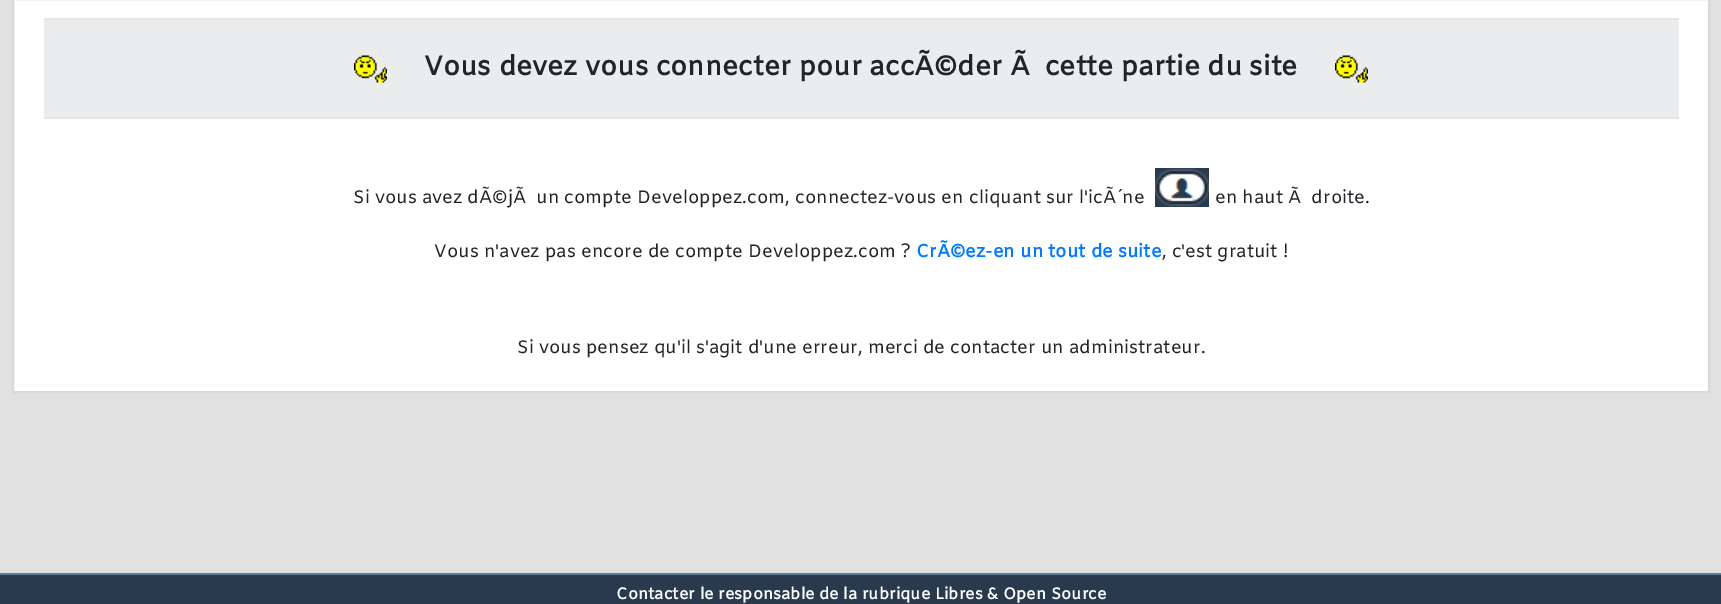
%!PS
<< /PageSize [1721 604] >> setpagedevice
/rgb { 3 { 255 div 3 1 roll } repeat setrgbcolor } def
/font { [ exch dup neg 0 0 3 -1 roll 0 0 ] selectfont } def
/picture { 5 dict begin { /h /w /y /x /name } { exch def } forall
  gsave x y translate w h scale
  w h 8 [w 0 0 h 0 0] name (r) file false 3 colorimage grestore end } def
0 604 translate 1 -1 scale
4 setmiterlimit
41 58 78 rgb
0 0 1721 604 rectfill
225 225 226 rgb
0 0 1721 573 rectfill
255 255 255 rgb
13 -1 moveto 1709 -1 lineto 1709 392 lineto 13 392 lineto closepath gsave fill grestore
215 217 219 rgb
2 setlinewidth
stroke
[
  [44 20 1635 97 234 236 238]
  [44 18 1635 2 229 229 229]
  [44 117 1635 2 229 229 229]
] { aload pop rgb rectfill } forall
(img/1.rgb) 354 55 33 28 picture
(img/1.rgb) 1335 55 33 28 picture
(img/2.rgb) 1155 168 54 39 picture
90 127 151 rgb
0 573 1721 2 rectfill
/Amiko-Bold 27 font
33 37 41 rgb
424 75 moveto (Vous devez vous connecter pour accÃ©der Ã  cette partie du site) show
/Amiko-Regular 18 font
[
  [(Si vous avez dÃ©jÃ  un compte Developpez.com, connectez-vous en cliquant sur l'icÃ´ne) 353 203]
  [(en haut Ã  droite.) 1215 203]
  [(Vous n'avez pas encore de compte Developpez.com ?) 434 257]
] { aload pop moveto show } forall
/Amiko-Bold 18 font
0 123 255 rgb
916 257 moveto (CrÃ©ez-en un tout de suite) show
/Amiko-Regular 18 font
33 37 41 rgb
1162 257 moveto (, c'est gratuit !) show
517 353 moveto (Si vous pensez qu'il s'agit d'une erreur, merci de contacter un administrateur.) show
/Amiko-Bold 16 font
255 255 255 rgb
616 599 moveto (Contacter le responsable de la rubrique Libres & Open Source) show
showpage
